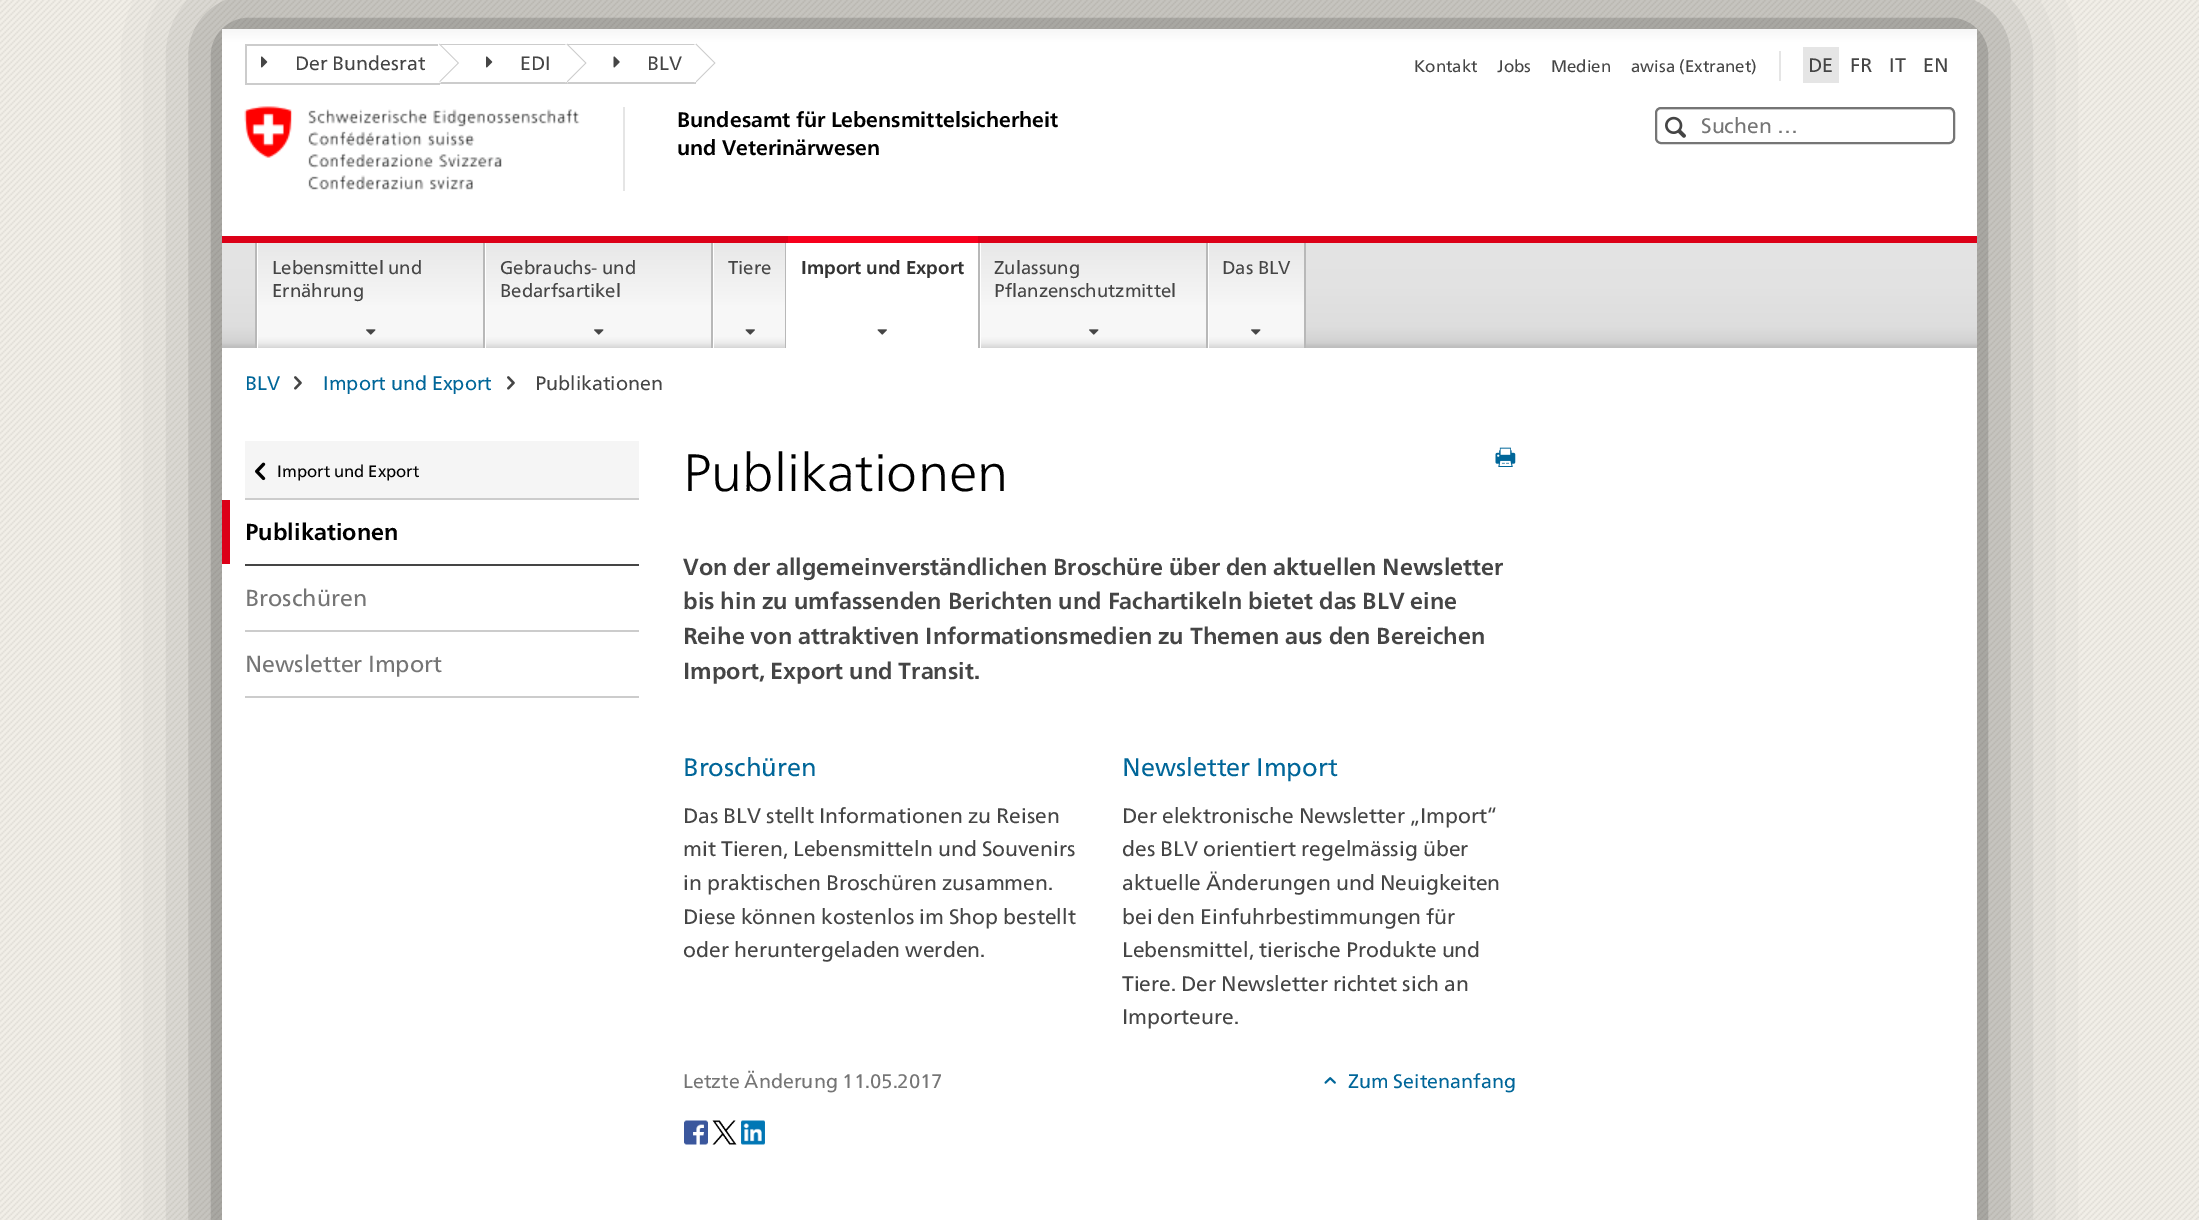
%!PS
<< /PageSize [2199 1220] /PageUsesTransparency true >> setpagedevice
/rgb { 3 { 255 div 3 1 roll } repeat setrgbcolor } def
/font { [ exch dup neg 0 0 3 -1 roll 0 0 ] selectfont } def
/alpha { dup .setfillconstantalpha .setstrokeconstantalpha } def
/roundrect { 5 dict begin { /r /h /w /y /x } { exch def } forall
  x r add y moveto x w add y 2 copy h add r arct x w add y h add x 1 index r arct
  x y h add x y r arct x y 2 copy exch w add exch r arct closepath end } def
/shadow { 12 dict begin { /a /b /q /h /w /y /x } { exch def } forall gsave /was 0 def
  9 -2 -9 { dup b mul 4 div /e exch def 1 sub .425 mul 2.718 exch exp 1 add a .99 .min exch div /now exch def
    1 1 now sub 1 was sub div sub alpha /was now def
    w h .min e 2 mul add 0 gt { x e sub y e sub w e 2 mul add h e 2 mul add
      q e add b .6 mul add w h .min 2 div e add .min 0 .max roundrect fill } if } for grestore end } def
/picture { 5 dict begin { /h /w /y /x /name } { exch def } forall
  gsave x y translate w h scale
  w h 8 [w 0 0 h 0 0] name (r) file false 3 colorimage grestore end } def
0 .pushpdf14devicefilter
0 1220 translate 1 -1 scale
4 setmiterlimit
255 255 255 rgb
0 0 2199 1220 rectfill
(img/1.rgb) 0 0 2199 1220 picture
0 0 0 rgb
222 29 1755 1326 0 45 0.6 shadow
255 255 255 rgb
222 348 1755 872 rectfill
gsave 222 29 moveto 1977 29 lineto 1977 236 lineto 222 236 lineto closepath clip newpath
<< /ShadingType 2 /ColorSpace /DeviceRGB /Coords [1100 28 1100 236] /Extend [true true] /Function << /FunctionType 3 /Domain [0 1] /Functions [<< /FunctionType 2 /Domain [0 1] /C0 [0.961 0.961 0.961] /C1 [1 1 1] /N 1 >> << /FunctionType 2 /Domain [0 1] /C0 [1 1 1] /C1 [1 1 1] /N 1 >>] /Bounds [0.07] /Encode [0 1 0 1] >> >> shfill grestore
[
  [245 44 195 2 204 204 204]
  [245 83 195 2 204 204 204]
  [245 44 2 40 204 204 204]
] { aload pop rgb rectfill } forall
439.5 82.5 moveto 439.5 43.5 lineto 459 63 lineto closepath fill
255 255 255 rgb
438 82.5 moveto 438 43.5 lineto 457.5 63 lineto closepath fill
(img/2.rgb) 261 56 7 12 picture
204 204 204 rgb
440 44 moveto 567 44 lineto 567 45 lineto 441 45 lineto closepath fill
567 84 moveto 440 84 lineto 441 82 lineto 567 82 lineto closepath fill
567 82.5 moveto 567 43.5 lineto 586.5 63 lineto closepath fill
255 255 255 rgb
565.5 82.5 moveto 565.5 43.5 lineto 585 63 lineto closepath fill
(img/2.rgb) 486 56 7 12 picture
204 204 204 rgb
567 44 moveto 696 44 lineto 696 45 lineto 568 45 lineto closepath fill
696 84 moveto 567 84 lineto 568 82 lineto 696 82 lineto closepath fill
696 82.5 moveto 696 43.5 lineto 715.5 63 lineto closepath fill
255 255 255 rgb
694.5 82.5 moveto 694.5 43.5 lineto 714 63 lineto closepath fill
(img/3.rgb) 613 56 7 12 picture
[
  [1779 51 2 30 229 229 229]
  [1803 47 36 36 229 229 229]
  [623 107 2 84 229 229 229]
] { aload pop rgb rectfill } forall
(img/4.rgb) 244 106 336 84 picture
236 236 236 rgb
1660 110 moveto 1948 110 lineto 1951 110 1953 112 1953 114 curveto 1953 113 lineto 1953 110 1951 108 1948 108 curveto 1661 108 lineto 1658 108 1656 110 1656 113 curveto 1656 114 lineto 1656 112 1658 110 1660 110 curveto closepath fill
117 117 117 rgb
2 setlinewidth
1656 108 298 35 5 roundrect stroke
(img/5.rgb) 1665 116 21 22 picture
gsave 222 243 moveto 1977 243 lineto 1977 348 lineto 222 348 lineto closepath clip newpath
<< /ShadingType 2 /ColorSpace /DeviceRGB /Coords [1100 243 1100 348] /Extend [true true] /Function << /FunctionType 3 /Domain [0 1] /Functions [<< /FunctionType 2 /Domain [0 1] /C0 [0.894 0.894 0.894] /C1 [0.886 0.886 0.886] /N 1 >> << /FunctionType 2 /Domain [0 1] /C0 [0.886 0.886 0.886] /C1 [0.867 0.867 0.867] /N 1 >> << /FunctionType 2 /Domain [0 1] /C0 [0.867 0.867 0.867] /C1 [0.835 0.835 0.835] /N 1 >> << /FunctionType 2 /Domain [0 1] /C0 [0.835 0.835 0.835] /C1 [0.812 0.812 0.812] /N 1 >> << /FunctionType 2 /Domain [0 1] /C0 [0.812 0.812 0.812] /C1 [0.745 0.745 0.745] /N 1 >> << /FunctionType 2 /Domain [0 1] /C0 [0.745 0.745 0.745] /C1 [0.745 0.745 0.745] /N 1 >>] /Bounds [0.39 0.79 0.91 0.95 0.99] /Encode [0 1 0 1 0 1 0 1 0 1 0 1] >> >> shfill grestore
[
  [222 236 1755 7 220 0 24]
  [255 243 2 105 184 184 184]
  [483 243 2 105 184 184 184]
  [257 243 1 105 255 255 255]
] { aload pop rgb rectfill } forall
gsave 258 243 moveto 483 243 lineto 483 348 lineto 258 348 lineto closepath clip newpath
<< /ShadingType 2 /ColorSpace /DeviceRGB /Coords [371 243 371 348] /Extend [true true] /Function << /FunctionType 3 /Domain [0 1] /Functions [<< /FunctionType 2 /Domain [0 1] /C0 [0.91 0.91 0.91] /C1 [0.969 0.969 0.969] /N 1 >> << /FunctionType 2 /Domain [0 1] /C0 [0.969 0.969 0.969] /C1 [0.969 0.969 0.969] /N 1 >> << /FunctionType 2 /Domain [0 1] /C0 [0.969 0.969 0.969] /C1 [0.961 0.961 0.961] /N 1 >> << /FunctionType 2 /Domain [0 1] /C0 [0.961 0.961 0.961] /C1 [0.925 0.925 0.925] /N 1 >> << /FunctionType 2 /Domain [0 1] /C0 [0.925 0.925 0.925] /C1 [0.843 0.843 0.843] /N 1 >>] /Bounds [0.61 0.89 0.91 0.95] /Encode [0 1 0 1 0 1 0 1 0 1] >> >> shfill grestore
(img/6.rgb) 366 329 10 6 picture
184 184 184 rgb
711 243 2 105 rectfill
255 255 255 rgb
485 243 1 105 rectfill
gsave 486 243 moveto 711 243 lineto 711 348 lineto 486 348 lineto closepath clip newpath
<< /ShadingType 2 /ColorSpace /DeviceRGB /Coords [599 243 599 348] /Extend [true true] /Function << /FunctionType 3 /Domain [0 1] /Functions [<< /FunctionType 2 /Domain [0 1] /C0 [0.91 0.91 0.91] /C1 [0.969 0.969 0.969] /N 1 >> << /FunctionType 2 /Domain [0 1] /C0 [0.969 0.969 0.969] /C1 [0.969 0.969 0.969] /N 1 >> << /FunctionType 2 /Domain [0 1] /C0 [0.969 0.969 0.969] /C1 [0.961 0.961 0.961] /N 1 >> << /FunctionType 2 /Domain [0 1] /C0 [0.961 0.961 0.961] /C1 [0.925 0.925 0.925] /N 1 >> << /FunctionType 2 /Domain [0 1] /C0 [0.925 0.925 0.925] /C1 [0.843 0.843 0.843] /N 1 >>] /Bounds [0.61 0.89 0.91 0.95] /Encode [0 1 0 1 0 1 0 1 0 1] >> >> shfill grestore
(img/6.rgb) 594 329 10 6 picture
184 184 184 rgb
785 243 1 105 rectfill
255 255 255 rgb
713 243 1 105 rectfill
gsave 714 243 moveto 785 243 lineto 785 348 lineto 714 348 lineto closepath clip newpath
<< /ShadingType 2 /ColorSpace /DeviceRGB /Coords [749 243 749 348] /Extend [true true] /Function << /FunctionType 3 /Domain [0 1] /Functions [<< /FunctionType 2 /Domain [0 1] /C0 [0.91 0.91 0.91] /C1 [0.969 0.969 0.969] /N 1 >> << /FunctionType 2 /Domain [0 1] /C0 [0.969 0.969 0.969] /C1 [0.969 0.969 0.969] /N 1 >> << /FunctionType 2 /Domain [0 1] /C0 [0.969 0.969 0.969] /C1 [0.961 0.961 0.961] /N 1 >> << /FunctionType 2 /Domain [0 1] /C0 [0.961 0.961 0.961] /C1 [0.925 0.925 0.925] /N 1 >> << /FunctionType 2 /Domain [0 1] /C0 [0.925 0.925 0.925] /C1 [0.843 0.843 0.843] /N 1 >>] /Bounds [0.61 0.89 0.91 0.95] /Encode [0 1 0 1 0 1 0 1 0 1] >> >> shfill grestore
(img/7.rgb) 745 329 10 6 picture
[
  [978 243 2 105 184 184 184]
  [786 243 192 105 255 255 255]
  [788 236 190 7 247 0 29]
] { aload pop rgb rectfill } forall
(img/8.rgb) 877 329 10 6 picture
184 184 184 rgb
1206 243 2 105 rectfill
255 255 255 rgb
980 243 1 105 rectfill
gsave 981 243 moveto 1206 243 lineto 1206 348 lineto 981 348 lineto closepath clip newpath
<< /ShadingType 2 /ColorSpace /DeviceRGB /Coords [1094 243 1094 348] /Extend [true true] /Function << /FunctionType 3 /Domain [0 1] /Functions [<< /FunctionType 2 /Domain [0 1] /C0 [0.91 0.91 0.91] /C1 [0.969 0.969 0.969] /N 1 >> << /FunctionType 2 /Domain [0 1] /C0 [0.969 0.969 0.969] /C1 [0.969 0.969 0.969] /N 1 >> << /FunctionType 2 /Domain [0 1] /C0 [0.969 0.969 0.969] /C1 [0.961 0.961 0.961] /N 1 >> << /FunctionType 2 /Domain [0 1] /C0 [0.961 0.961 0.961] /C1 [0.925 0.925 0.925] /N 1 >> << /FunctionType 2 /Domain [0 1] /C0 [0.925 0.925 0.925] /C1 [0.843 0.843 0.843] /N 1 >>] /Bounds [0.61 0.89 0.91 0.95] /Encode [0 1 0 1 0 1 0 1 0 1] >> >> shfill grestore
(img/6.rgb) 1089 329 10 6 picture
184 184 184 rgb
1304 243 2 105 rectfill
255 255 255 rgb
1208 243 1 105 rectfill
gsave 1209 243 moveto 1304 243 lineto 1304 348 lineto 1209 348 lineto closepath clip newpath
<< /ShadingType 2 /ColorSpace /DeviceRGB /Coords [1256 243 1256 348] /Extend [true true] /Function << /FunctionType 3 /Domain [0 1] /Functions [<< /FunctionType 2 /Domain [0 1] /C0 [0.91 0.91 0.91] /C1 [0.969 0.969 0.969] /N 1 >> << /FunctionType 2 /Domain [0 1] /C0 [0.969 0.969 0.969] /C1 [0.969 0.969 0.969] /N 1 >> << /FunctionType 2 /Domain [0 1] /C0 [0.969 0.969 0.969] /C1 [0.961 0.961 0.961] /N 1 >> << /FunctionType 2 /Domain [0 1] /C0 [0.961 0.961 0.961] /C1 [0.925 0.925 0.925] /N 1 >> << /FunctionType 2 /Domain [0 1] /C0 [0.925 0.925 0.925] /C1 [0.843 0.843 0.843] /N 1 >>] /Bounds [0.61 0.89 0.91 0.95] /Encode [0 1 0 1 0 1 0 1 0 1] >> >> shfill grestore
(img/6.rgb) 1251 329 10 6 picture
(img/9.rgb) 294 376 8 14 picture
(img/9.rgb) 507 376 8 14 picture
245 245 245 rgb
245 441 394 57 rectfill
204 204 204 rgb
245 498 394 2 rectfill
(img/10.rgb) 255 462 11 19 picture
[
  [245 564 394 2 69 69 69]
  [222 500 8 64 220 0 24]
  [245 630 394 2 204 204 204]
  [245 696 394 2 204 204 204]
] { aload pop rgb rectfill } forall
(img/11.rgb) 1495 447 21 20 picture
(img/12.rgb) 1324 1077 12 7 picture
(img/13.rgb) 684 1120 24 25 picture
(img/14.rgb) 712 1120 25 25 picture
(img/15.rgb) 741 1120 24 25 picture
/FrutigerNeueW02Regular-Regular 19.5 font
69 69 69 rgb
[
  [(Der Bundesrat) 295 70]
  [(EDI) 520 70]
  [(BLV) 647 70]
] { aload pop moveto show } forall
/FrutigerNeueW02Regular-Regular 16.75 font
[
  [(Kontakt) 1414 72]
  [(Jobs) 1497 72]
  [(Medien) 1551 72]
  [(awisa \(Extranet\)) 1631 72]
] { aload pop moveto show } forall
/FrutigerNeueW02Regular-Regular 19.6 font
[
  [(DE) 1808 72]
  [(FR) 1850 72]
  [(IT) 1889 72]
  [(EN) 1923 72]
] { aload pop moveto show } forall
/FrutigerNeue-Bold 21 font
0 0 0 rgb
677 127 moveto (Bundesamt für Lebensmittelsicherheit) show
677 155 moveto (und Veterinärwesen) show
/FrutigerNeueW02Regular-Regular 21 font
117 117 117 rgb
1701 133 moveto (Suchen …) show
/FrutigerNeueW02Regular-Regular 18.5 font
69 69 69 rgb
[
  [(Lebensmittel und) 272 274]
  [(Ernährung) 272 297]
  [(Gebrauchs- und) 500 274]
  [(Bedarfsartikel) 500 297]
  [(Tiere) 728 274]
] { aload pop moveto show } forall
/FrutigerNeue-Bold 18.5 font
51 51 51 rgb
801 274 moveto (Import und Export) show
/FrutigerNeueW02Regular-Regular 18.5 font
69 69 69 rgb
[
  [(Zulassung) 994 274]
  [(Pflanzenschutzmittel) 994 297]
  [(Das BLV) 1222 274]
] { aload pop moveto show } forall
/FrutigerNeueW02Regular-Regular 19.6 font
0 102 153 rgb
245 390 moveto (BLV) show
323 390 moveto (Import und Export) show
69 69 69 rgb
535 390 moveto (Publikationen) show
/FrutigerNeueW02Regular-Regular 16.5 font
0 0 0 rgb
277 477 moveto (Import und Export) show
/FrutigerNeue-Bold 23.1 font
245 540 moveto (Publikationen) show
/FrutigerNeueW02Regular-Regular 23.1 font
117 117 117 rgb
245 606 moveto (Broschüren) show
245 672 moveto (Newsletter Import) show
/FrutigerNeue-Light 52.5 font
0 0 0 rgb
683 491 moveto (Publikationen) show
/FrutigerNeue-Bold 23.1 font
69 69 69 rgb
[
  [(Von der allgemeinverständlichen Broschüre über den aktuellen Newsletter) 683 575]
  [(bis hin zu umfassenden Berichten und Fachartikeln bietet das BLV eine) 683 609]
  [(Reihe von attraktiven Informationsmedien zu Themen aus den Bereichen) 683 644]
  [(Import, Export und Transit.) 683 679]
] { aload pop moveto show } forall
/FrutigerNeueW02Regular-Regular 25.25 font
0 102 153 rgb
683 776 moveto (Broschüren) show
/FrutigerNeueW02Regular-Regular 21 font
69 69 69 rgb
[
  [(Das BLV stellt Informationen zu Reisen) 683 823]
  [(mit Tieren, Lebensmitteln und Souvenirs) 683 856]
  [(in praktischen Broschüren zusammen.) 683 890]
  [(Diese können kostenlos im Shop bestellt) 683 924]
  [(oder heruntergeladen werden.) 683 957]
] { aload pop moveto show } forall
/FrutigerNeueW02Regular-Regular 25.25 font
0 102 153 rgb
1122 776 moveto (Newsletter Import) show
/FrutigerNeueW02Regular-Regular 21 font
69 69 69 rgb
[
  [(Der elektronische Newsletter „Import“) 1122 823]
  [(des BLV orientiert regelmässig über) 1122 856]
  [(aktuelle Änderungen und Neuigkeiten) 1122 890]
  [(bei den Einfuhrbestimmungen für) 1122 924]
  [(Lebensmittel, tierische Produkte und) 1122 957]
  [(Tiere. Der Newsletter richtet sich an) 1122 991]
  [(Importeure.) 1122 1024]
] { aload pop moveto show } forall
/FrutigerNeueW02Regular-Regular 19.6 font
117 117 117 rgb
683 1088 moveto (Letzte Änderung 11.05.2017) show
0 102 153 rgb
1348 1088 moveto (Zum Seitenanfang) show
.poppdf14devicefilter showpage
